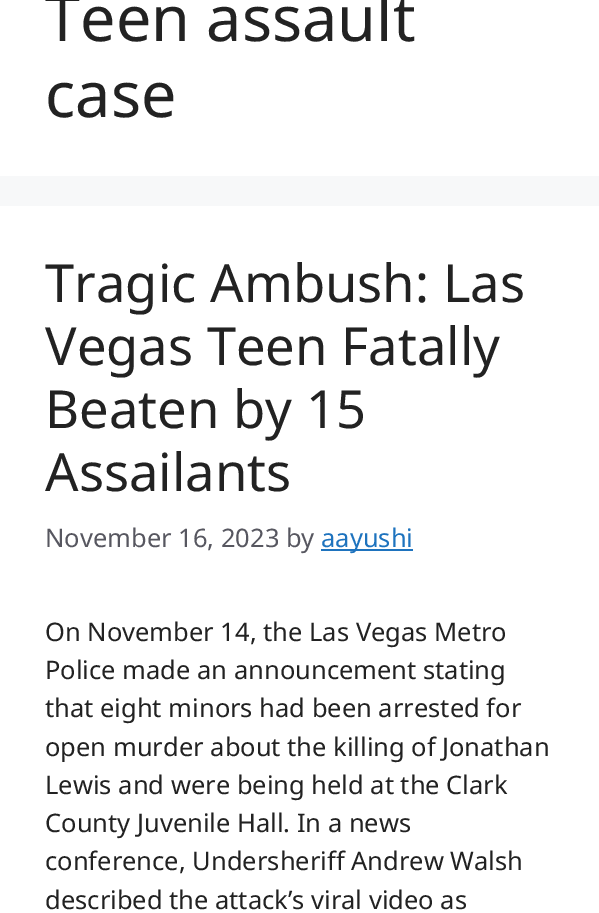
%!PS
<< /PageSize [599 913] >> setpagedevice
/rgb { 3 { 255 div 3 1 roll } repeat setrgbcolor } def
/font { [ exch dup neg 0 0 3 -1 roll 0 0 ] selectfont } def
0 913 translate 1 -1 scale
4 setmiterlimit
247 248 249 rgb
0 0 599 913 rectfill
[
  [0 0 599 176 255 255 255]
  [0 206 599 707 255 255 255]
  [321 549 92 2 30 115 190]
] { aload pop rgb rectfill } forall
/NotoSans-Regular 63 font
34 34 34 rgb
45 41 moveto (Teen assault) show
45 117 moveto (case) show
/NotoSans-Regular 52.5 font
[
  [(Tragic Ambush: Las) 45 302]
  [(Vegas Teen Fatally) 45 365]
  [(Beaten by 15) 45 428]
  [(Assailants) 45 491]
] { aload pop moveto show } forall
/NotoSans-Regular 25.5 font
87 87 96 rgb
45 547 moveto (November 16, 2023 by) show
30 115 190 rgb
321 547 moveto (aayushi) show
34 34 34 rgb
[
  [(On November 14, the Las Vegas Metro) 45 641]
  [(Police made an announcement stating) 45 679]
  [(that eight minors had been arrested for) 45 717]
  [(open murder about the killing of Jonathan) 45 756]
  [(Lewis and were being held at the Clark) 45 794]
  [(County Juvenile Hall. In a news) 45 832]
  [(conference, Undersheriff Andrew Walsh) 45 870]
  [(described the attack’s viral video as) 45 909]
] { aload pop moveto show } forall
showpage
